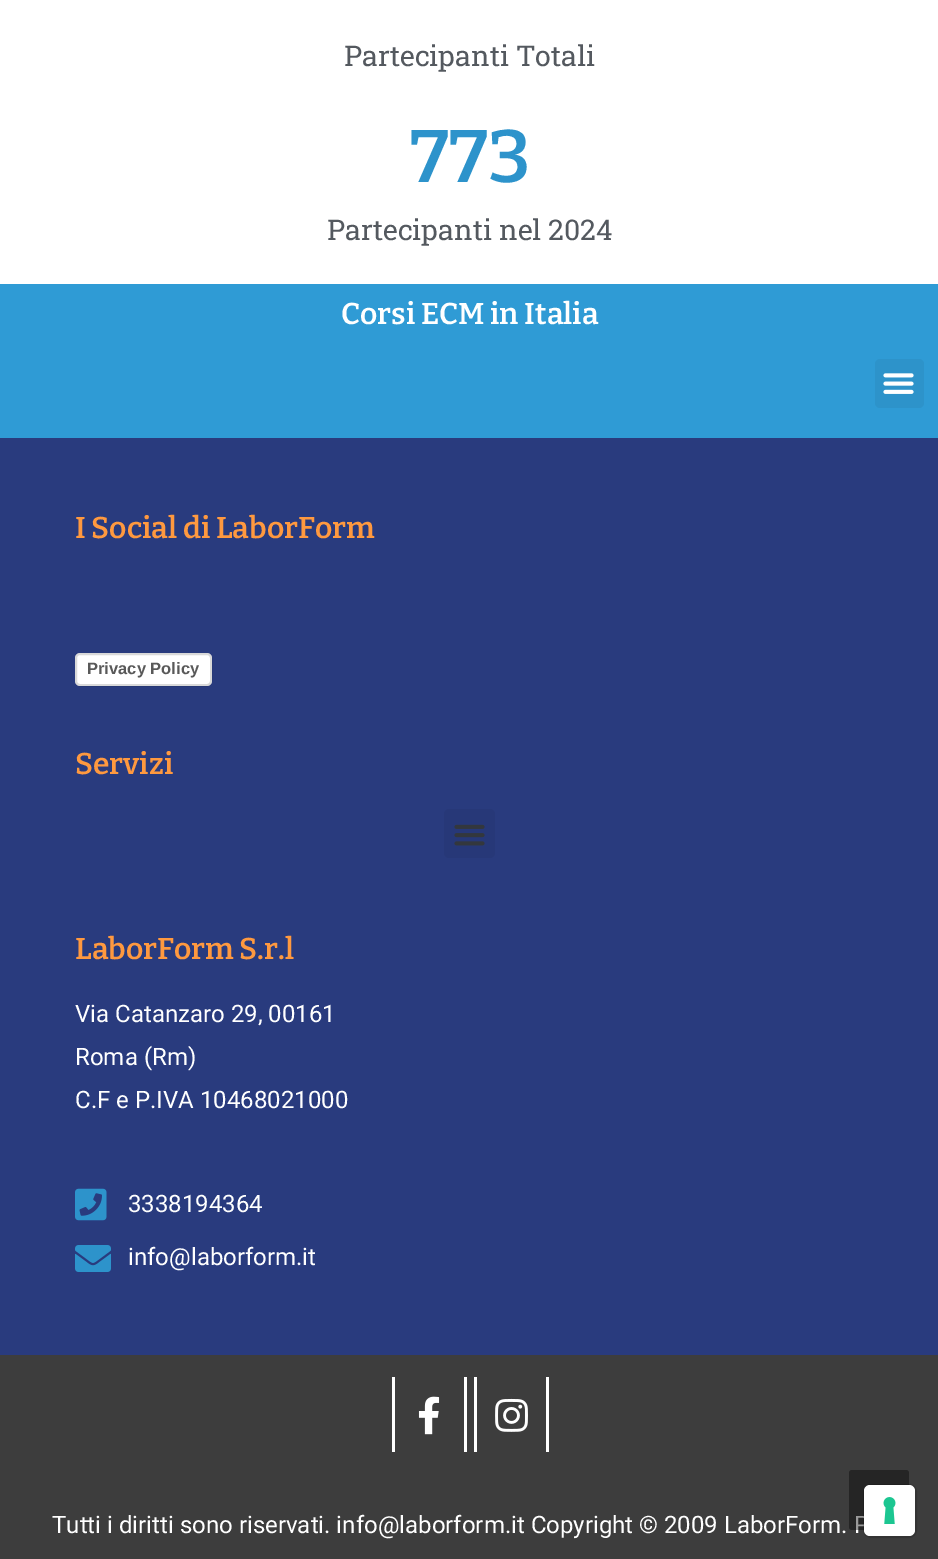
%!PS
<< /PageSize [938 1559] /PageUsesTransparency true >> setpagedevice
/rgb { 3 { 255 div 3 1 roll } repeat setrgbcolor } def
/font { [ exch dup neg 0 0 3 -1 roll 0 0 ] selectfont } def
/alpha { dup .setfillconstantalpha .setstrokeconstantalpha } def
/roundrect { 5 dict begin { /r /h /w /y /x } { exch def } forall
  x r add y moveto x w add y 2 copy h add r arct x w add y h add x 1 index r arct
  x y h add x y r arct x y 2 copy exch w add exch r arct closepath end } def
/shadow { 12 dict begin { /a /b /q /h /w /y /x } { exch def } forall gsave /was 0 def
  9 -2 -9 { dup b mul 4 div /e exch def 1 sub .425 mul 2.718 exch exp 1 add a .99 .min exch div /now exch def
    1 1 now sub 1 was sub div sub alpha /was now def
    w h .min e 2 mul add 0 gt { x e sub y e sub w e 2 mul add h e 2 mul add
      q e add b .6 mul add w h .min 2 div e add .min 0 .max roundrect fill } if } for grestore end } def
/picture { 5 dict begin { /h /w /y /x /name } { exch def } forall
  gsave x y translate w h scale
  w h 8 [w 0 0 h 0 0] name (r) file false 3 colorimage grestore end } def
0 .pushpdf14devicefilter
0 1559 translate 1 -1 scale
4 setmiterlimit
255 255 255 rgb
0 0 938 1559 rectfill
47 155 213 rgb
0 284 938 154 rectfill
45 147 202 rgb
875 359 49 49 5 roundrect fill
(img/1.rgb) 883 373 31 21 picture
41 59 126 rgb
0 438 938 917 rectfill
0 0 0 rgb
77 656 133 30 3 1 0.15 shadow
255 255 255 rgb
75 653 137 33 5 roundrect fill
0.15 alpha
0 0 0 rgb
2 setlinewidth
76 654 135 31 4 roundrect stroke
1 alpha
39 56 120 rgb
444 809 51 49 5 roundrect fill
(img/2.rgb) 454 824 31 22 picture
(img/3.rgb) 75 1188 32 33 picture
(img/4.rgb) 75 1245 36 27 picture
[
  [0 1355 938 204 61 61 61]
  [464 1377 3 75 255 255 255]
  [392 1377 3 75 255 255 255]
] { aload pop rgb rectfill } forall
(img/5.rgb) 418 1396 22 39 picture
546 1377 3 75 rectfill
474 1377 3 75 rectfill
(img/6.rgb) 495 1398 33 34 picture
/RobotoSlab-Regular 28.5 font
84 89 95 rgb
344 66 moveto (Partecipanti Totali) show
/Bitter-SemiBold 74 font
45 147 203 rgb
410 182 moveto (773) show
/RobotoSlab-Regular 28.5 font
84 89 95 rgb
327 240 moveto (Partecipanti nel 2024) show
/Bitter-SemiBold 30 font
255 255 255 rgb
341 324 moveto (Corsi ECM in Italia) show
255 153 63 rgb
75 538 moveto (I Social di LaborForm) show
/LiberationSans-Bold 16.5 font
89 89 89 rgb
87 674 moveto (Privacy Policy) show
/Bitter-SemiBold 30 font
255 153 63 rgb
75 774 moveto (Servizi) show
75 959 moveto (LaborForm S.r.l) show
/Roboto-Regular 24 font
255 255 255 rgb
[
  [(Via Catanzaro 29, 00161) 75 1022]
  [(Roma \(Rm\)) 75 1065]
  [(C.F e P.IVA 10468021000) 75 1108]
  [(3338194364) 128 1212]
  [(info@laborform.it) 128 1265]
  [(Tutti i diritti sono riservati. info@laborform.it Copyright © 2009 LaborForm. P) 52 1533]
] { aload pop moveto show } forall
0.4 alpha
0 0 0 rgb
849 1470 60 60 3 roundrect fill
0.15 alpha
864 1485 52 52 7 roundrect stroke
1 alpha
255 255 255 rgb
864 1485 51 51 6 roundrect fill
(img/7.rgb) 883 1497 13 27 picture
.poppdf14devicefilter showpage
